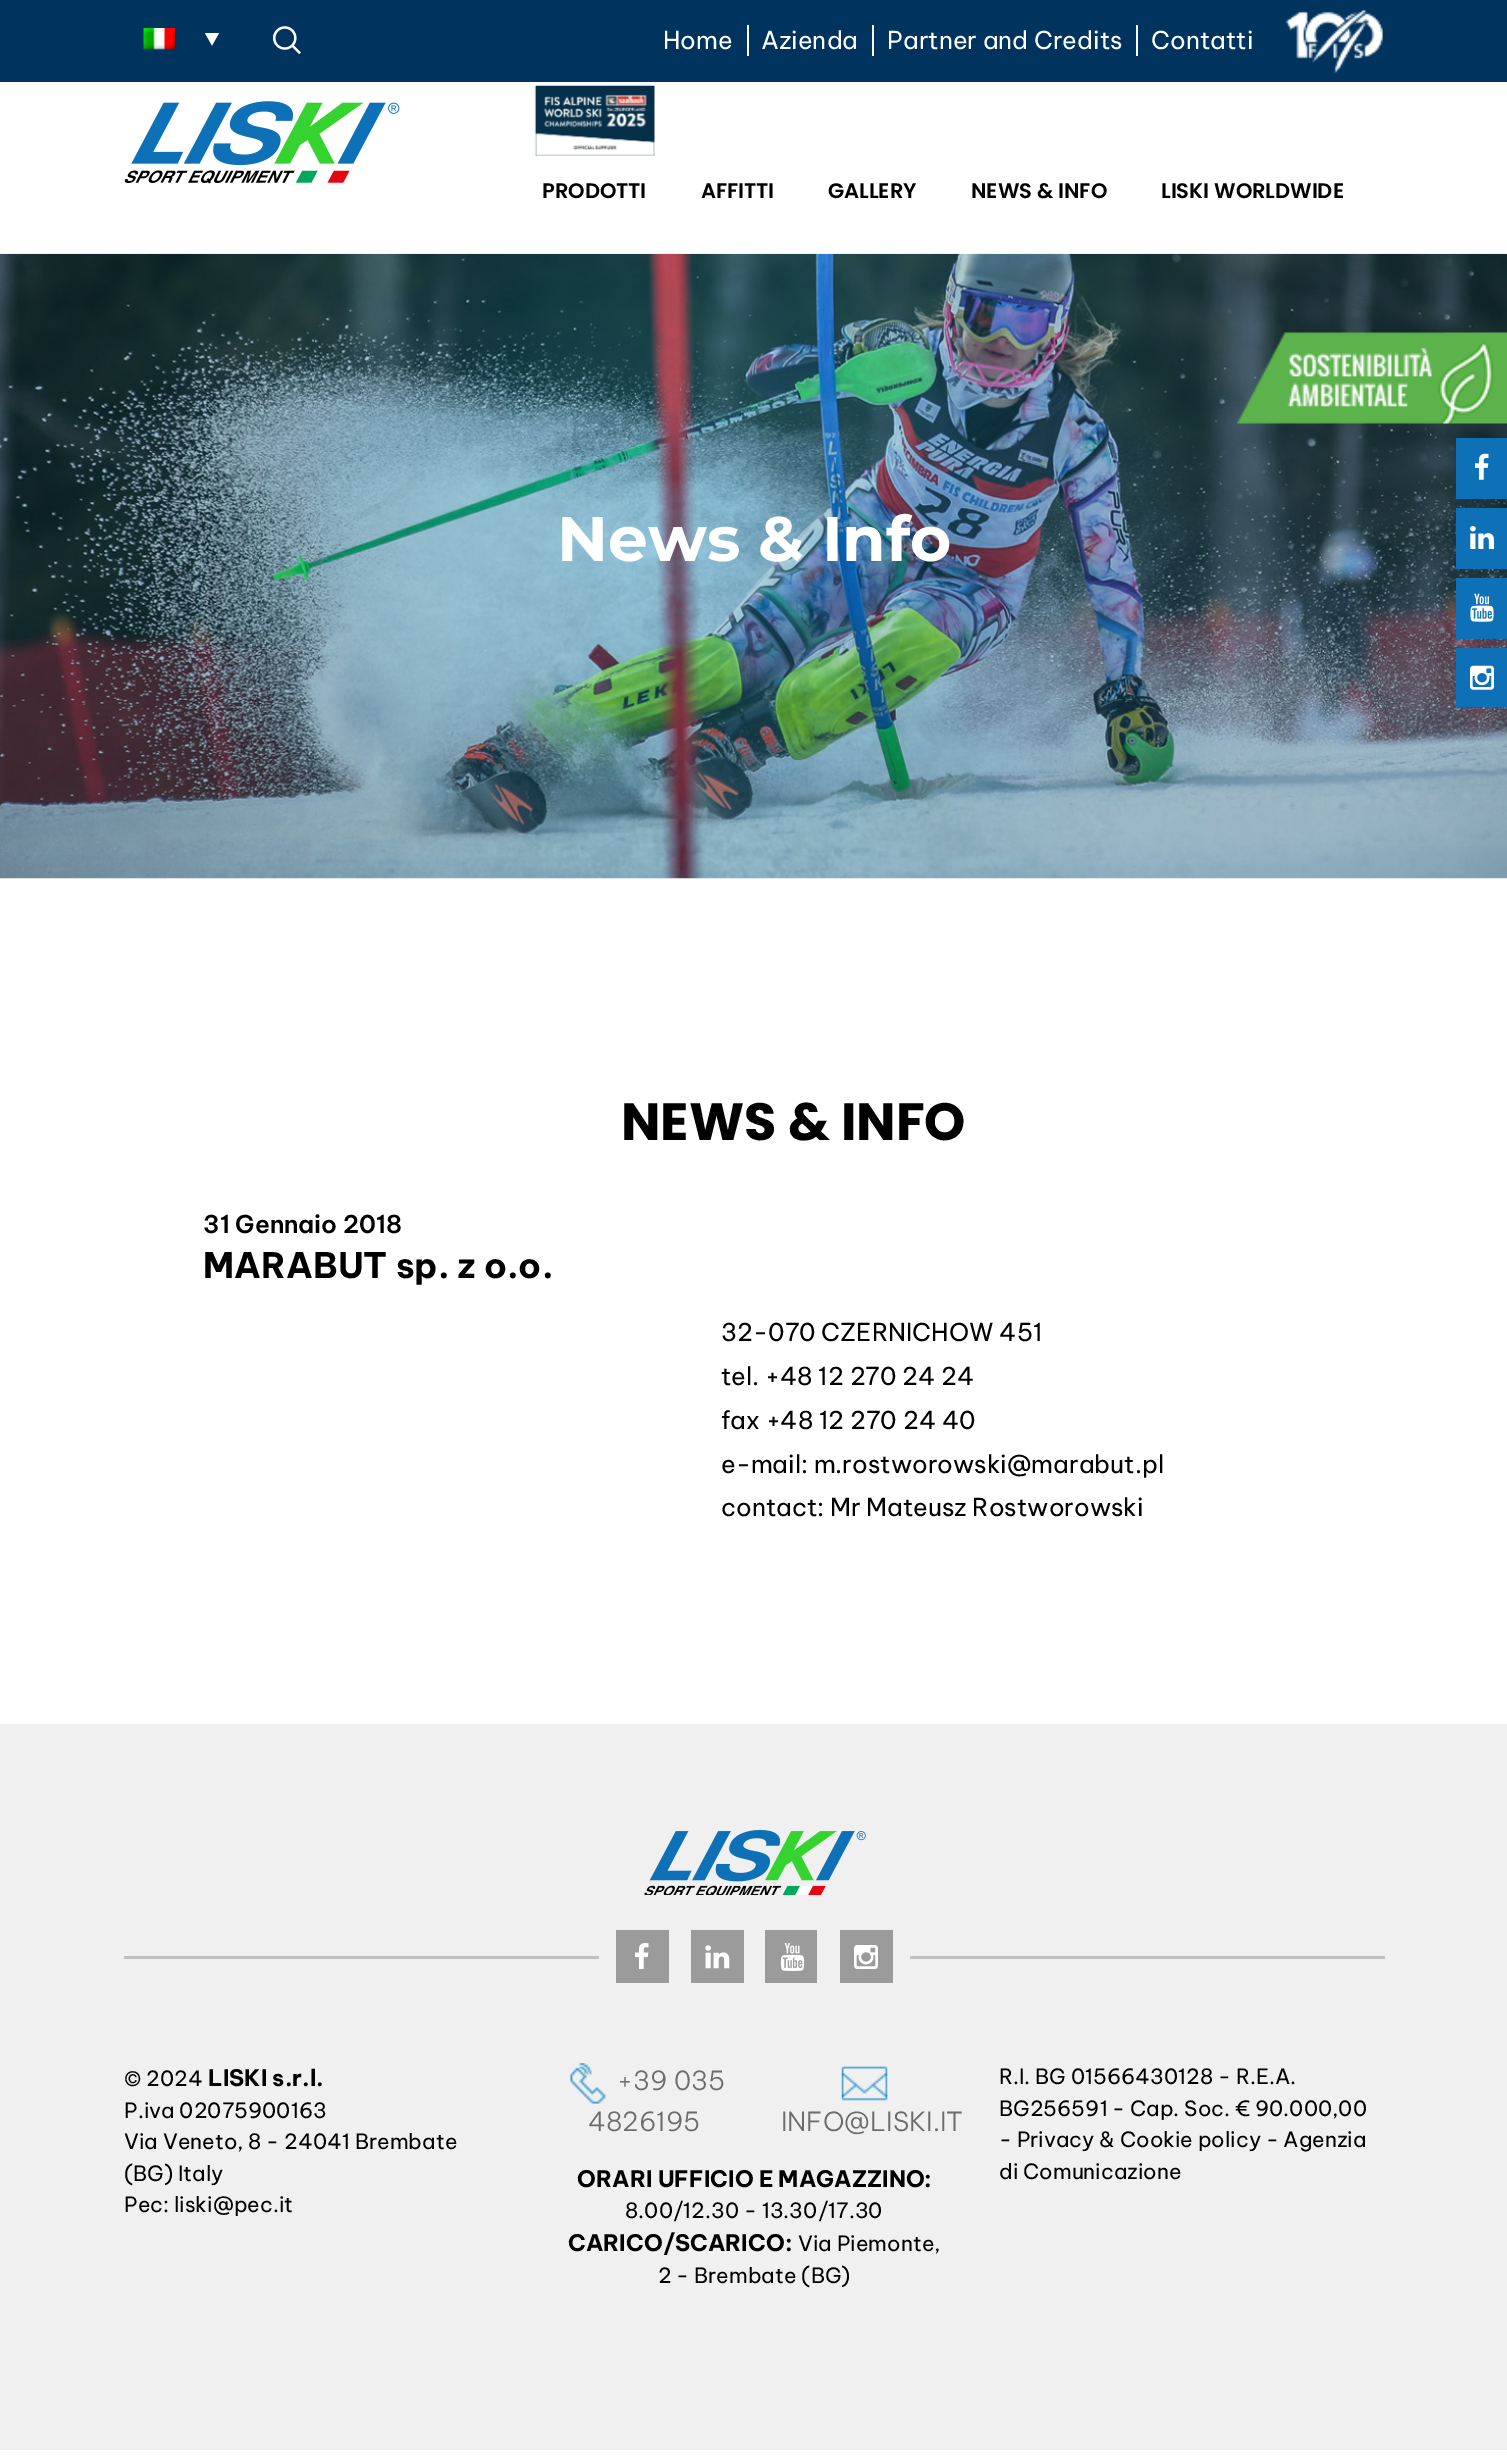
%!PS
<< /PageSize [1507 2463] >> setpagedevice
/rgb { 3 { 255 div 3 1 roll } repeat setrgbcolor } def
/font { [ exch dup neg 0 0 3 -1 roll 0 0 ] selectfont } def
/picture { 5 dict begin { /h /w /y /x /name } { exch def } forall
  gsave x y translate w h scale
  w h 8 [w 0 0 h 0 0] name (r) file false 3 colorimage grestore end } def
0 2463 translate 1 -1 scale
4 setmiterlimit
255 255 255 rgb
0 0 1507 2463 rectfill
0 52 94 rgb
0 0 1507 82 rectfill
(img/1.rgb) 143 28 32 22 picture
255 255 255 rgb
205 33 moveto 219 33 lineto 212 45.5 lineto closepath fill
(img/2.rgb) 273 26 28 28 picture
[
  [747 25 2 31 255 255 255]
  [872 25 2 31 255 255 255]
  [1136 25 2 31 255 255 255]
] { aload pop rgb rectfill } forall
(img/3.rgb) 1285 10 98 64 picture
(img/4.rgb) 124 101 276 83 picture
(img/5.rgb) 534 85 121 71 picture
(img/7.rgb) 0 253 1507 626 picture
(img/6.rgb) 1237 332 270 92 picture
14 113 184 rgb
1456 438 51 61 rectfill
(img/8.rgb) 1475 453 14 27 picture
1456 508 51 61 rectfill
(img/9.rgb) 1470 526 24 23 picture
1456 578 51 61 rectfill
(img/10.rgb) 1470 593 24 29 picture
1456 648 51 59 rectfill
(img/11.rgb) 1470 665 24 25 picture
240 240 240 rgb
0 1724 1507 726 rectfill
(img/12.rgb) 644 1829 222 66 picture
[
  [124 1956 1261 3 192 192 192]
  [599 1956 311 3 240 240 240]
  [616 1930 53 53 155 155 155]
] { aload pop rgb rectfill } forall
(img/13.rgb) 635 1943 14 26 picture
691 1930 53 53 rectfill
(img/14.rgb) 705 1945 25 24 picture
765 1930 52 53 rectfill
(img/15.rgb) 780 1943 25 28 picture
840 1930 53 53 rectfill
(img/16.rgb) 854 1945 24 24 picture
(img/17.rgb) 570 2063 36 41 picture
(img/18.rgb) 841 2066 47 35 picture
/BeVietnamPro-Regular 24.5 font
255 255 255 rgb
[
  [(Home) 663 49]
  [(Azienda) 761 49]
  [(Partner and Credits) 887 49]
  [(Contatti) 1151 49]
] { aload pop moveto show } forall
/Poppins-SemiBold 21 font
0 0 0 rgb
[
  [(PRODOTTI) 542 198]
  [(AFFITTI) 701 198]
  [(GALLERY) 828 198]
  [(NEWS & INFO) 971 198]
  [(LISKI WORLDWIDE) 1161 198]
] { aload pop moveto show } forall
/Montserrat-Bold 63 font
255 255 255 rgb
557 561 moveto (News & Info) show
/Poppins-Bold 52.5 font
0 0 0 rgb
621 1140 moveto (NEWS & INFO) show
/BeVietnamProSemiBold-SemiBold 24.5 font
203 1233 moveto (31 Gennaio 2018) show
/BeVietnamPro-Bold 35 font
203 1278 moveto (MARABUT sp. z o.o.) show
/BeVietnamPro-Regular 24.5 font
[
  [(32-070 CZERNICHOW 451) 721 1341]
  [(tel. +48 12 270 24 24) 721 1385]
  [(fax +48 12 270 24 40) 721 1429]
  [(e-mail: m.rostworowski@marabut.pl) 721 1473]
  [(contact: Mr Mateusz Rostworowski) 721 1516]
] { aload pop moveto show } forall
/BeVietnamPro-Regular 21 font
124 2086 moveto (© 2024) show
/BeVietnamPro-Bold 22.75 font
208 2086 moveto (LISKI s.r.l.) show
/BeVietnamPro-Regular 21 font
[
  [(P.iva 02075900163) 124 2118]
  [(Via Veneto, 8 - 24041 Brembate) 124 2149]
  [(\(BG\) Italy) 124 2181]
  [(Pec: liski@pec.it) 124 2212]
] { aload pop moveto show } forall
/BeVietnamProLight-Light 26.25 font
109 108 108 rgb
[
  [(+39 035) 617 2090]
  [(4826195) 588 2131]
  [(INFO@LISKI.IT) 781 2131]
] { aload pop moveto show } forall
/BeVietnamPro-Bold 22.75 font
0 0 0 rgb
577 2187 moveto (ORARI UFFICIO E MAGAZZINO:) show
/BeVietnamPro-Regular 21 font
625 2218 moveto (8.00/12.30 - 13.30/17.30) show
/BeVietnamPro-Bold 22.75 font
568 2251 moveto (CARICO/SCARICO:) show
/BeVietnamPro-Regular 21 font
[
  [(Via Piemonte,) 798 2251]
  [(2 - Brembate \(BG\)) 658 2283]
  [(R.I. BG 01566430128 - R.E.A.) 999 2084]
  [(BG256591 - Cap. Soc. € 90.000,00) 999 2116]
  [(- Privacy & Cookie policy - Agenzia) 999 2147]
  [(di Comunicazione) 999 2179]
] { aload pop moveto show } forall
showpage
